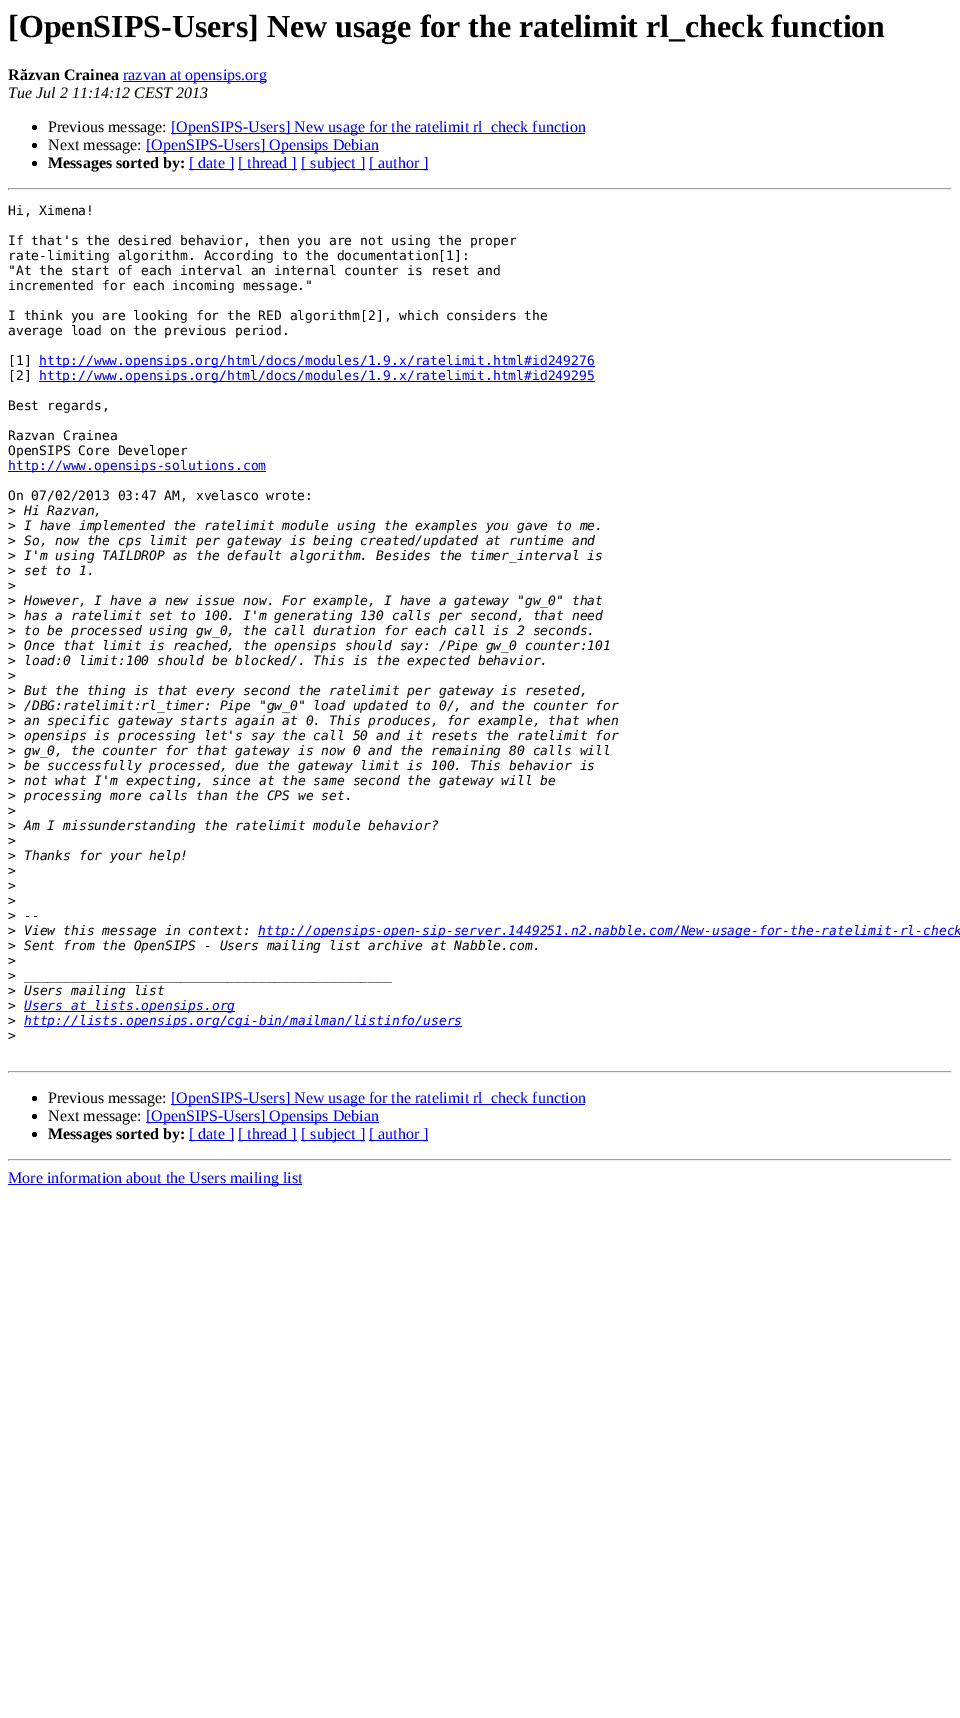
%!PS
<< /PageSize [960 1718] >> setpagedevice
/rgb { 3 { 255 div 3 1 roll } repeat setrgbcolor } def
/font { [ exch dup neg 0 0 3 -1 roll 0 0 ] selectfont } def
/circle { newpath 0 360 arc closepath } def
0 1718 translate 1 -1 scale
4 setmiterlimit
255 255 255 rgb
0 0 960 1718 rectfill
0 0 238 rgb
123 81 143 1 rectfill
0 0 0 rgb
34.5 127.5 2.5 circle fill
0 0 238 rgb
171 133 414 1 rectfill
0 0 0 rgb
34.5 145.5 2.5 circle fill
0 0 238 rgb
146 151 233 1 rectfill
0 0 0 rgb
34.5 163.5 2.5 circle fill
[
  [189 169 45 1 0 0 238]
  [238 169 59 1 0 0 238]
  [301 169 64 1 0 0 238]
  [369 169 59 1 0 0 238]
  [8 188 944 1 159 159 159]
  [951 188 1 2 238 238 238]
  [8 189 944 1 238 238 238]
  [8 188 1 2 159 159 159]
  [39 366 556 1 0 0 238]
  [39 381 556 1 0 0 238]
  [8 471 258 1 0 0 238]
  [258 936 702 1 0 0 238]
  [24 1011 211 1 0 0 238]
  [24 1026 438 1 0 0 238]
  [8 1071 944 1 159 159 159]
  [951 1071 1 2 238 238 238]
  [8 1072 944 1 238 238 238]
  [8 1071 1 2 159 159 159]
] { aload pop rgb rectfill } forall
0 0 0 rgb
34.5 1098.5 2.5 circle fill
0 0 238 rgb
171 1104 414 1 rectfill
0 0 0 rgb
34.5 1116.5 2.5 circle fill
0 0 238 rgb
146 1122 233 1 rectfill
0 0 0 rgb
34.5 1134.5 2.5 circle fill
[
  [189 1140 45 1 0 0 238]
  [238 1140 59 1 0 0 238]
  [301 1140 64 1 0 0 238]
  [369 1140 59 1 0 0 238]
  [8 1159 944 1 159 159 159]
  [951 1159 1 2 238 238 238]
  [8 1160 944 1 238 238 238]
  [8 1159 1 2 159 159 159]
  [8 1184 294 1 0 0 238]
] { aload pop rgb rectfill } forall
/LiberationSerif-Bold 32 font
0 0 0 rgb
8 37 moveto ([OpenSIPS-Users] New usage for the ratelimit rl_check function) show
/LiberationSerif-Bold 16 font
8 80 moveto (Răzvan Crainea) show
/LiberationSerif-Regular 16 font
0 0 238 rgb
123 80 moveto (razvan at opensips.org) show
/LiberationSerif-Italic 16 font
0 0 0 rgb
8 98 moveto (Tue Jul 2 11:14:12 CEST 2013) show
/LiberationSerif-Regular 16 font
48 132 moveto (Previous message:) show
0 0 238 rgb
171 132 moveto ([OpenSIPS-Users] New usage for the ratelimit rl_check function) show
0 0 0 rgb
48 150 moveto (Next message:) show
0 0 238 rgb
146 150 moveto ([OpenSIPS-Users] Opensips Debian) show
/LiberationSerif-Bold 16 font
0 0 0 rgb
48 168 moveto (Messages sorted by:) show
/LiberationSerif-Regular 16 font
0 0 238 rgb
[
  [([ date ]) 189 168]
  [([ thread ]) 238 168]
  [([ subject ]) 301 168]
  [([ author ]) 369 168]
] { aload pop moveto show } forall
/DejaVuSansMono-Regular 13 font
0 0 0 rgb
[
  [(Hi, Ximena!) 8 215]
  [(If that's the desired behavior, then you are not using the proper) 8 245]
  [(rate-limiting algorithm. According to the documentation[1]:) 8 260]
  [("At the start of each interval an internal counter is reset and) 8 275]
  [(incremented for each incoming message.") 8 290]
  [(I think you are looking for the RED algorithm[2], which considers the) 8 320]
  [(average load on the previous period.) 8 335]
  [([1]) 8 365]
] { aload pop moveto show } forall
0 0 238 rgb
39 365 moveto (http://www.opensips.org/html/docs/modules/1.9.x/ratelimit.html#id249276) show
0 0 0 rgb
8 380 moveto ([2]) show
0 0 238 rgb
39 380 moveto (http://www.opensips.org/html/docs/modules/1.9.x/ratelimit.html#id249295) show
0 0 0 rgb
[
  [(Best regards,) 8 410]
  [(Razvan Crainea) 8 440]
  [(OpenSIPS Core Developer) 8 455]
] { aload pop moveto show } forall
0 0 238 rgb
8 470 moveto (http://www.opensips-solutions.com) show
0 0 0 rgb
8 500 moveto (On 07/02/2013 03:47 AM, xvelasco wrote:) show
8 515 moveto (>) show
/DejaVuSansMono-Italic 13 font
24 515 moveto (Hi Razvan,) show
/DejaVuSansMono-Regular 13 font
8 530 moveto (>) show
/DejaVuSansMono-Italic 13 font
24 530 moveto (I have implemented the ratelimit module using the examples you gave to me.) show
/DejaVuSansMono-Regular 13 font
8 545 moveto (>) show
/DejaVuSansMono-Italic 13 font
24 545 moveto (So, now the cps limit per gateway is being created/updated at runtime and) show
/DejaVuSansMono-Regular 13 font
8 560 moveto (>) show
/DejaVuSansMono-Italic 13 font
24 560 moveto (I'm using TAILDROP as the default algorithm. Besides the timer_interval is) show
/DejaVuSansMono-Regular 13 font
8 575 moveto (>) show
/DejaVuSansMono-Italic 13 font
24 575 moveto (set to 1.) show
/DejaVuSansMono-Regular 13 font
8 590 moveto (>) show
8 605 moveto (>) show
/DejaVuSansMono-Italic 13 font
24 605 moveto (However, I have a new issue now. For example, I have a gateway "gw_0" that) show
/DejaVuSansMono-Regular 13 font
8 620 moveto (>) show
/DejaVuSansMono-Italic 13 font
24 620 moveto (has a ratelimit set to 100. I'm generating 130 calls per second, that need) show
/DejaVuSansMono-Regular 13 font
8 635 moveto (>) show
/DejaVuSansMono-Italic 13 font
24 635 moveto (to be processed using gw_0, the call duration for each call is 2 seconds.) show
/DejaVuSansMono-Regular 13 font
8 650 moveto (>) show
/DejaVuSansMono-Italic 13 font
24 650 moveto (Once that limit is reached, the opensips should say: /Pipe gw_0 counter:101) show
/DejaVuSansMono-Regular 13 font
8 665 moveto (>) show
/DejaVuSansMono-Italic 13 font
24 665 moveto (load:0 limit:100 should be blocked/. This is the expected behavior.) show
/DejaVuSansMono-Regular 13 font
8 680 moveto (>) show
8 695 moveto (>) show
/DejaVuSansMono-Italic 13 font
24 695 moveto (But the thing is that every second the ratelimit per gateway is reseted,) show
/DejaVuSansMono-Regular 13 font
8 710 moveto (>) show
/DejaVuSansMono-Italic 13 font
24 710 moveto (/DBG:ratelimit:rl_timer: Pipe "gw_0" load updated to 0/, and the counter for) show
/DejaVuSansMono-Regular 13 font
8 725 moveto (>) show
/DejaVuSansMono-Italic 13 font
24 725 moveto (an specific gateway starts again at 0. This produces, for example, that when) show
/DejaVuSansMono-Regular 13 font
8 740 moveto (>) show
/DejaVuSansMono-Italic 13 font
24 740 moveto (opensips is processing let's say the call 50 and it resets the ratelimit for) show
/DejaVuSansMono-Regular 13 font
8 755 moveto (>) show
/DejaVuSansMono-Italic 13 font
24 755 moveto (gw_0, the counter for that gateway is now 0 and the remaining 80 calls will) show
/DejaVuSansMono-Regular 13 font
8 770 moveto (>) show
/DejaVuSansMono-Italic 13 font
24 770 moveto (be successfully processed, due the gateway limit is 100. This behavior is) show
/DejaVuSansMono-Regular 13 font
8 785 moveto (>) show
/DejaVuSansMono-Italic 13 font
24 785 moveto (not what I'm expecting, since at the same second the gateway will be) show
/DejaVuSansMono-Regular 13 font
8 800 moveto (>) show
/DejaVuSansMono-Italic 13 font
24 800 moveto (processing more calls than the CPS we set.) show
/DejaVuSansMono-Regular 13 font
8 815 moveto (>) show
8 830 moveto (>) show
/DejaVuSansMono-Italic 13 font
24 830 moveto (Am I missunderstanding the ratelimit module behavior?) show
/DejaVuSansMono-Regular 13 font
8 845 moveto (>) show
8 860 moveto (>) show
/DejaVuSansMono-Italic 13 font
24 860 moveto (Thanks for your help!) show
/DejaVuSansMono-Regular 13 font
[
  [(>) 8 875]
  [(>) 8 890]
  [(>) 8 905]
  [(>) 8 920]
] { aload pop moveto show } forall
/DejaVuSansMono-Italic 13 font
24 920 moveto (--) show
/DejaVuSansMono-Regular 13 font
8 935 moveto (>) show
/DejaVuSansMono-Italic 13 font
24 935 moveto (View this message in context:) show
0 0 238 rgb
258 935 moveto (http://opensips-open-sip-server.1449251.n2.nabble.com/New-usage-for-the-ratelimit-rl-check) show
/DejaVuSansMono-Regular 13 font
0 0 0 rgb
8 950 moveto (>) show
/DejaVuSansMono-Italic 13 font
24 950 moveto (Sent from the OpenSIPS - Users mailing list archive at Nabble.com.) show
/DejaVuSansMono-Regular 13 font
8 965 moveto (>) show
8 980 moveto (>) show
/DejaVuSansMono-Italic 13 font
24 980 moveto (_______________________________________________) show
/DejaVuSansMono-Regular 13 font
8 995 moveto (>) show
/DejaVuSansMono-Italic 13 font
24 995 moveto (Users mailing list) show
/DejaVuSansMono-Regular 13 font
8 1010 moveto (>) show
/DejaVuSansMono-Italic 13 font
0 0 238 rgb
24 1010 moveto (Users at lists.opensips.org) show
/DejaVuSansMono-Regular 13 font
0 0 0 rgb
8 1025 moveto (>) show
/DejaVuSansMono-Italic 13 font
0 0 238 rgb
24 1025 moveto (http://lists.opensips.org/cgi-bin/mailman/listinfo/users) show
/DejaVuSansMono-Regular 13 font
0 0 0 rgb
8 1040 moveto (>) show
/LiberationSerif-Regular 16 font
48 1103 moveto (Previous message:) show
0 0 238 rgb
171 1103 moveto ([OpenSIPS-Users] New usage for the ratelimit rl_check function) show
0 0 0 rgb
48 1121 moveto (Next message:) show
0 0 238 rgb
146 1121 moveto ([OpenSIPS-Users] Opensips Debian) show
/LiberationSerif-Bold 16 font
0 0 0 rgb
48 1139 moveto (Messages sorted by:) show
/LiberationSerif-Regular 16 font
0 0 238 rgb
[
  [([ date ]) 189 1139]
  [([ thread ]) 238 1139]
  [([ subject ]) 301 1139]
  [([ author ]) 369 1139]
  [(More information about the Users mailing list) 8 1183]
] { aload pop moveto show } forall
showpage
